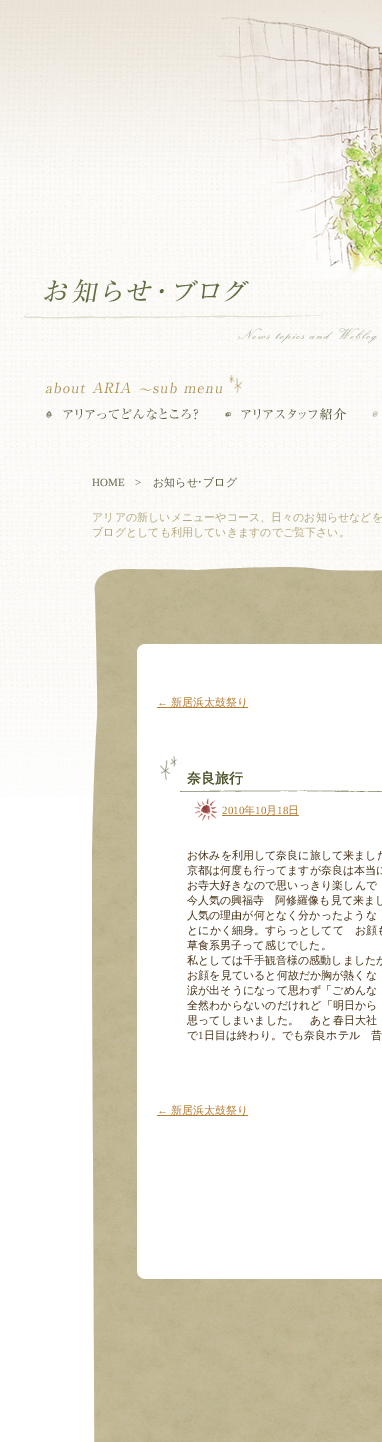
%!PS
<< /PageSize [382 1442] >> setpagedevice
/rgb { 3 { 255 div 3 1 roll } repeat setrgbcolor } def
/font { [ exch dup neg 0 0 3 -1 roll 0 0 ] selectfont } def
/picture { 5 dict begin { /h /w /y /x /name } { exch def } forall
  gsave x y translate w h scale
  w h 8 [w 0 0 h 0 0] name (r) file false 3 colorimage grestore end } def
0 1442 translate 1 -1 scale
4 setmiterlimit
255 255 255 rgb
0 0 382 1442 rectfill
(img/1.rgb) 0 279 382 518 picture
(img/2.rgb) 0 0 382 279 picture
(img/3.rgb) 24 279 353 64 picture
(img/4.rgb) 94 567 288 41 picture
(img/5.rgb) 45 375 197 19 picture
(img/6.rgb) 46 408 152 12 picture
(img/7.rgb) 225 408 122 12 picture
(img/8.rgb) 372 411 6 6 picture
(img/9.rgb) 92 608 290 834 picture
(img/10.rgb) 137 644 245 31 picture
137 675 245 573 rectfill
180 123 50 rgb
157 707 91 1 rectfill
(img/11.rgb) 160 756 222 65 picture
222 815 77 1 rectfill
157 1115 91 1 rectfill
(img/12.rgb) 137 1248 245 31 picture
/LiberationSerif-Regular 11 font
98 101 76 rgb
92 486 moveto (HOME) show
135 486 moveto (>) show
/WenQuanYiZenHei-Medium 11 font
153 486 moveto (お知らせ) show
/IPAPGothic-Regular 11 font
197 486 moveto (･) show
/WenQuanYiZenHei-Medium 11 font
203 486 moveto (ブログ) show
179 169 127 rgb
92 521 moveto (アリアの新しいメニューやコース、日々のお知らせなどを) show
92 536 moveto (ブログとしても利用していきますのでご覧下さい。) show
/LiberationSerif-Regular 11 font
180 123 50 rgb
157 706 moveto (←) show
/WenQuanYiZenHei-Medium 11 font
171 706 moveto (新居浜太鼓祭り) show
/WenQuanYiZenHei-Bold 14 font
79 84 44 rgb
187 783 moveto (奈良旅行) show
/LiberationSerif-Regular 11 font
180 123 50 rgb
222 814 moveto (2010) show
/WenQuanYiZenHei-Medium 11 font
244 814 moveto (年) show
/LiberationSerif-Regular 11 font
255 814 moveto (10) show
/WenQuanYiZenHei-Medium 11 font
266 814 moveto (月) show
/LiberationSerif-Regular 11 font
277 814 moveto (18) show
/WenQuanYiZenHei-Medium 11 font
288 814 moveto (日) show
69 48 20 rgb
[
  [(お休みを利用して奈良に旅して来ました) 187 859]
  [(京都は何度も行ってますが奈良は本当に) 187 874]
  [(お寺大好きなので思いっきり楽しんで) 187 889]
  [(今人気の興福寺　阿修羅像も見て来まし) 187 904]
  [(人気の理由が何となく分かったような) 187 919]
  [(とにかく細身。すらっとしてて　お顔も) 187 934]
  [(草食系男子って感じでした。) 187 949]
  [(私としては千手観音様の感動しましたが) 187 964]
  [(お顔を見ていると何故だか胸が熱くな) 187 979]
  [(涙が出そうになって思わず「ごめんな) 187 994]
  [(全然わからないのだけれど「明日から) 187 1009]
  [(思ってしまいました。　あと春日大社) 187 1024]
  [(で) 187 1039]
] { aload pop moveto show } forall
/LiberationSerif-Regular 11 font
198 1039 moveto (1) show
/WenQuanYiZenHei-Medium 11 font
204 1039 moveto (日目は終わり。でも奈良ホテル　昔) show
/LiberationSerif-Regular 11 font
180 123 50 rgb
157 1114 moveto (←) show
/WenQuanYiZenHei-Medium 11 font
171 1114 moveto (新居浜太鼓祭り) show
showpage
